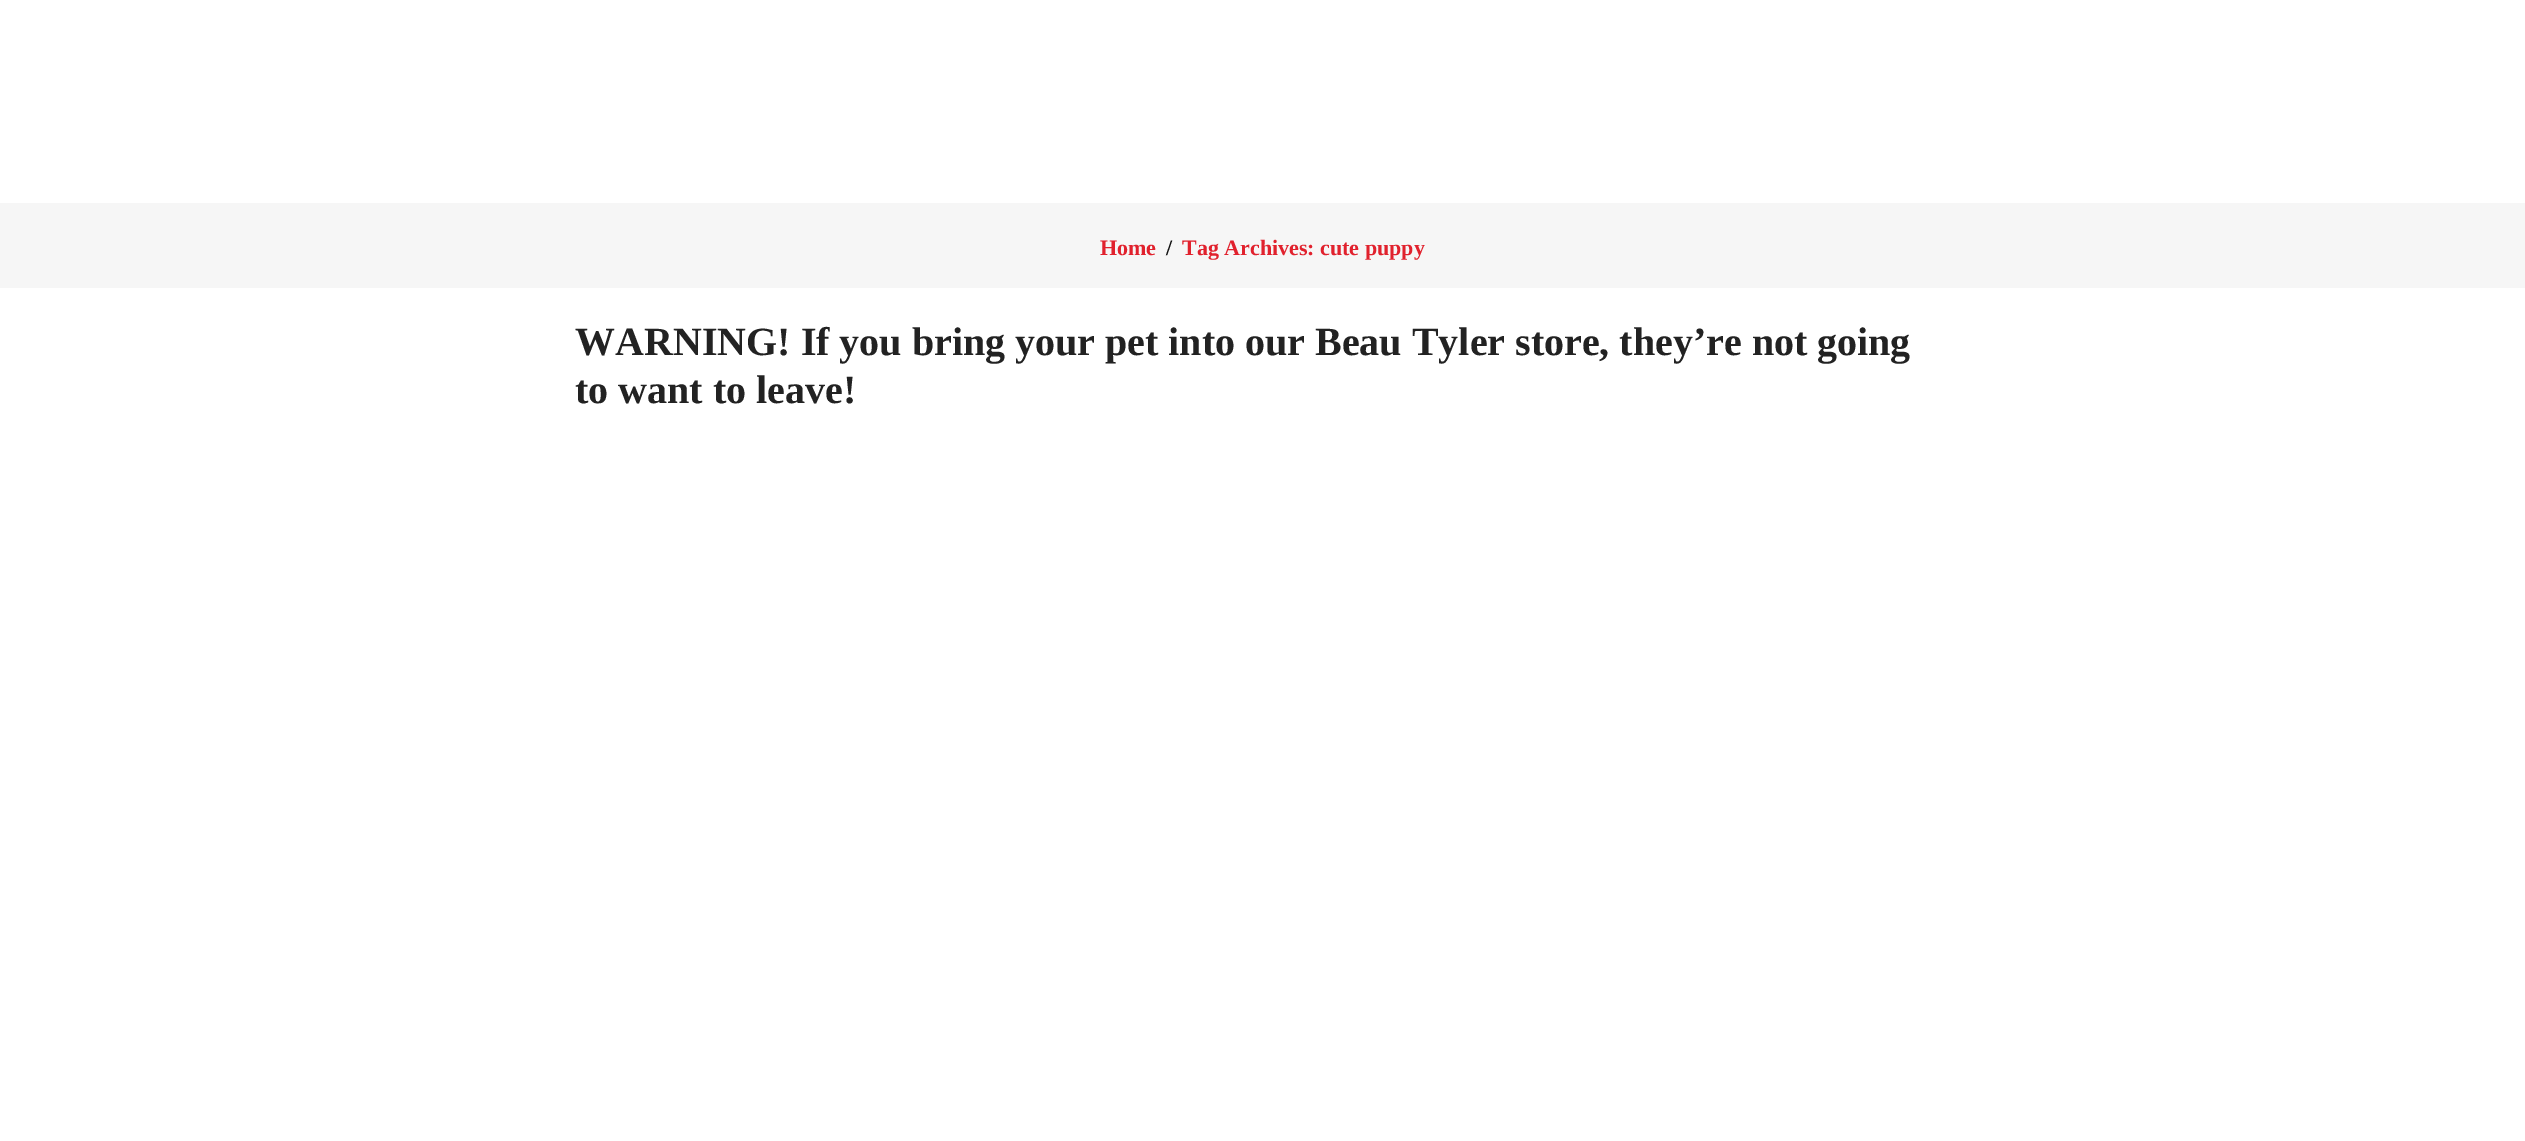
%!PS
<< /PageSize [2525 1141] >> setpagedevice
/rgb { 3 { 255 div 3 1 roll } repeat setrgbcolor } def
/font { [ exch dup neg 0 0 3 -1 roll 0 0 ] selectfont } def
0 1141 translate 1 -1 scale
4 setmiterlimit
255 255 255 rgb
0 0 2525 1141 rectfill
246 246 246 rgb
0 203 2525 85 rectfill
/LiberationSerif-Bold 22 font
225 33 45 rgb
1100 255 moveto (Home) show
17 17 17 rgb
1166 255 moveto (/) show
225 33 45 rgb
1182 255 moveto (Tag Archives: cute puppy) show
/LiberationSerif-Bold 40 font
34 34 34 rgb
575 355 moveto (WARNING! If you bring your pet into our Beau Tyler store, they’re not going) show
575 403 moveto (to want to leave!) show
showpage
